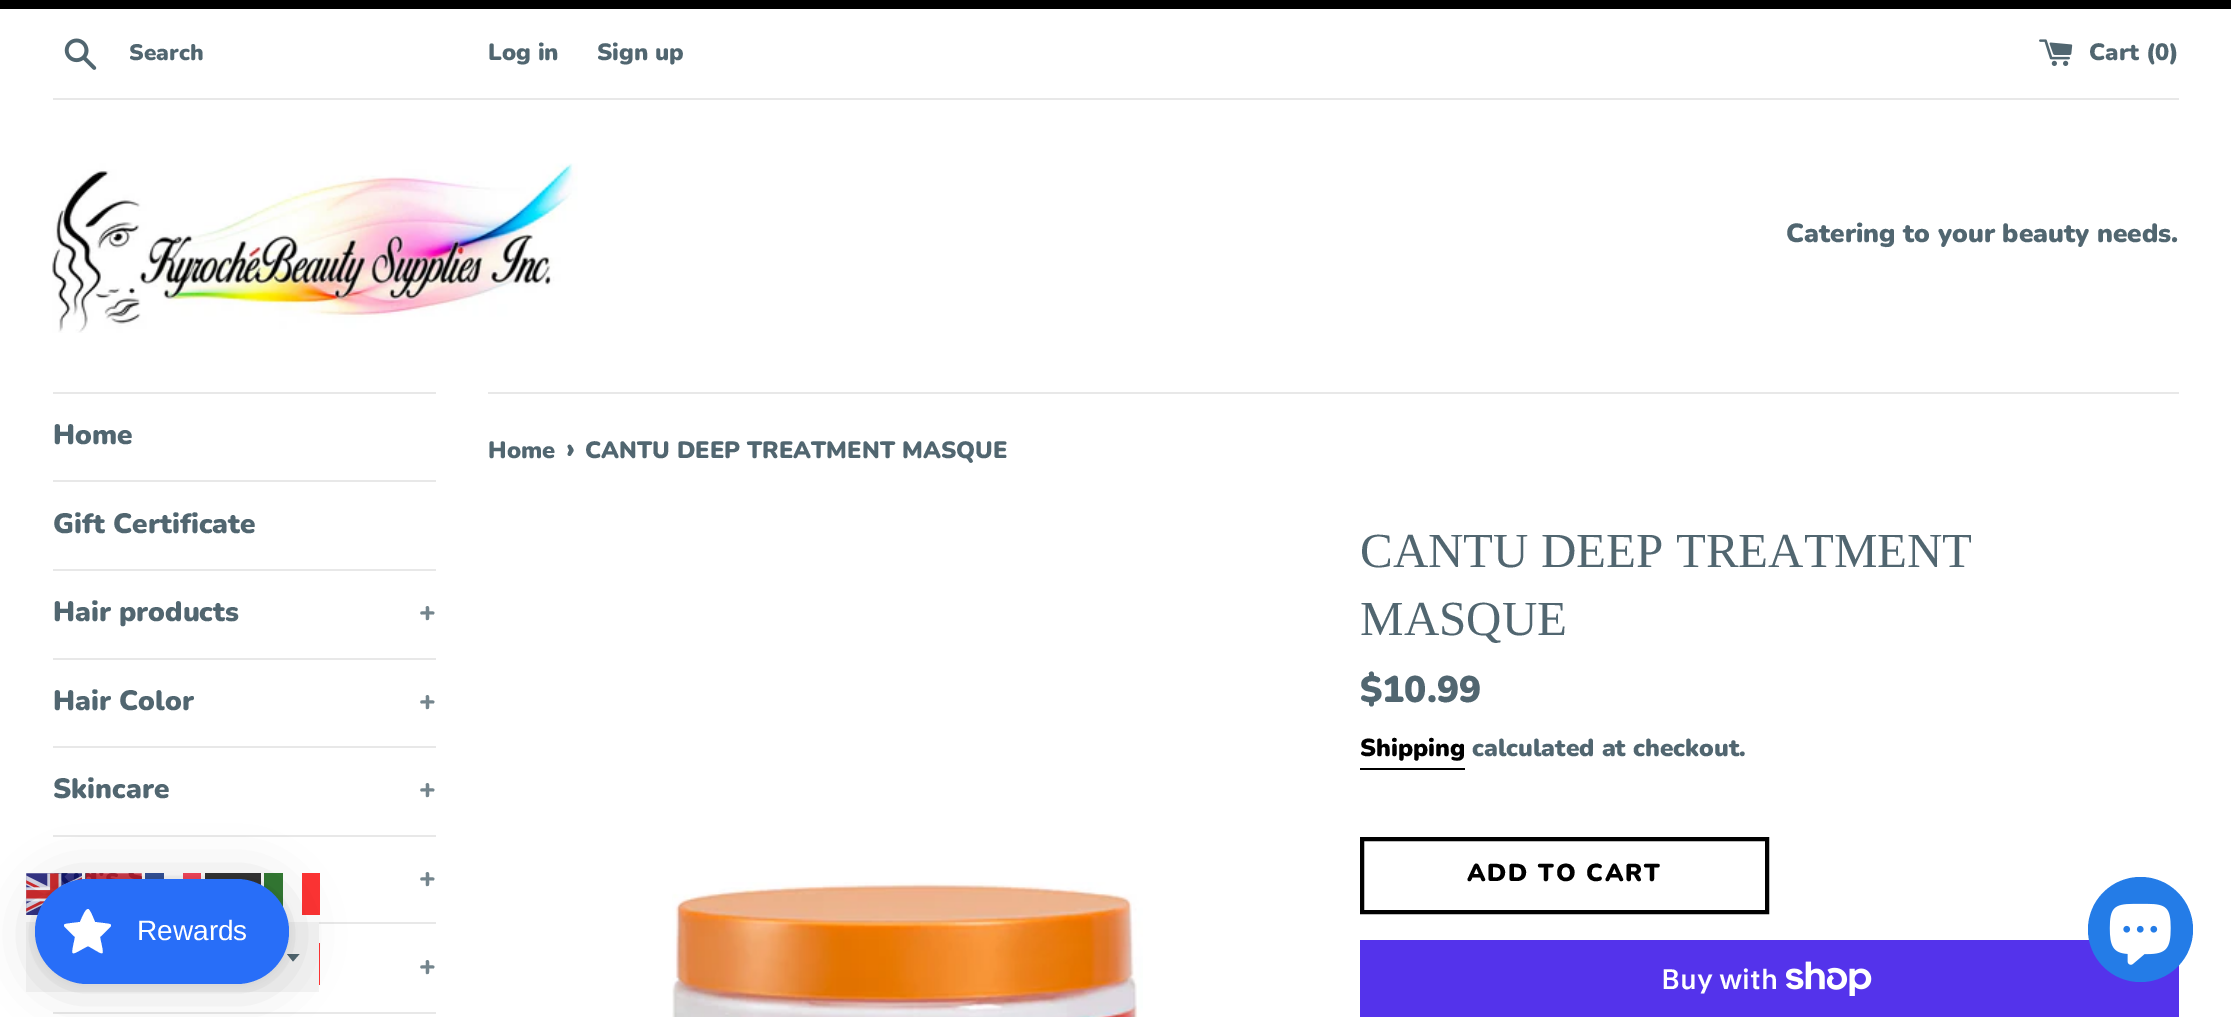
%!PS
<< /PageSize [2231 1017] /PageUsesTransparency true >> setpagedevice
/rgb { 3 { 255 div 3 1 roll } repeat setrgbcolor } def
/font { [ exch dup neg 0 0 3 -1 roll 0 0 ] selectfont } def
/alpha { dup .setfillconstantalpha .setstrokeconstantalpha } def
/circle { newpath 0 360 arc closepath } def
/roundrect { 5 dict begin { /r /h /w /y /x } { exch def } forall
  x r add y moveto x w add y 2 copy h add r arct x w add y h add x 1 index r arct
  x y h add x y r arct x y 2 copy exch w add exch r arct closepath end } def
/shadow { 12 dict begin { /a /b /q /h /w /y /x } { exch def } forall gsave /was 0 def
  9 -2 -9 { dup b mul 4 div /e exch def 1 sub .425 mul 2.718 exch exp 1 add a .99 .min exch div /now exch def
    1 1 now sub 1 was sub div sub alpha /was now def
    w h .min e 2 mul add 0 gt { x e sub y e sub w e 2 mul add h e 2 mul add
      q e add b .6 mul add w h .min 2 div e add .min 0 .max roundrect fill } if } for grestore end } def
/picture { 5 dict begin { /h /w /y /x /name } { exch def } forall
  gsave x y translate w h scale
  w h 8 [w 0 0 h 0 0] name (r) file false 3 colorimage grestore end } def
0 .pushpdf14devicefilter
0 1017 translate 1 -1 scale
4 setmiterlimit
255 255 255 rgb
0 0 2231 1017 rectfill
0 0 0 rgb
0 0 2231 9 rectfill
(img/1.rgb) 64 38 33 32 picture
(img/2.rgb) 2039 39 34 27 picture
232 232 232 rgb
53 98 2126 2 rectfill
(img/3.rgb) 52 163 526 170 picture
[
  [53 392 383 2 232 232 232]
  [53 480 383 2 232 232 232]
  [53 569 383 2 232 232 232]
  [53 658 383 2 232 232 232]
  [53 746 383 2 232 232 232]
  [53 835 383 2 232 232 232]
  [319 922 117 2 232 232 232]
  [53 1012 383 2 232 232 232]
  [488 392 1691 2 232 232 232]
] { aload pop rgb rectfill } forall
(img/4.rgb) 672 882 471 135 picture
0 0 0 rgb
1360 768 105 2 rectfill
4 setlinewidth
1362 839 405 73 rectstroke
84 51 235 rgb
1360 940 819 77 rectfill
(img/5.rgb) 1786 961 86 35 picture
(img/6.rgb) 26 873 56 42 picture
(img/7.rgb) 85 873 57 7 picture
0.8 alpha
[
  [145 873 19 6 0 38 127]
  [183 873 18 6 243 24 48]
  [205 873 56 13 0 0 0]
] { aload pop rgb rectfill } forall
1 alpha
[
  [264 873 19 34 51 121 51]
  [302 873 18 42 253 51 51]
  [26 922 293 70 244 244 244]
] { aload pop rgb rectfill } forall
81 102 112 rgb
287 954 moveto 293 961.5 lineto 299.5 954 lineto closepath fill
36 124 231 rgb
2140.5 929.5 52.5 circle fill
(img/8.rgb) 2109 903 62 62 picture
253 51 51 rgb
319 943 1 42 rectfill
0 0 0 rgb
35 882 254 105 52.5 26 0.15 shadow
35 880 254 105 52.5 5 0.05 shadow
40 110 248 rgb
35 879 254 105 52.5 roundrect fill
255 255 255 rgb
88 909 moveto 85 909 81 920 80 922 curveto 59 925 60 922 75 937 curveto 71 958 69 956 88 946 curveto 106 956 104 958 100 937 curveto 115 922 116 925 95 922 curveto 94 920 90 909 88 909 curveto closepath fill
/Nunito-Black 22.5 font
81 102 112 rgb
129 60 moveto (Search) show
/Nunito-Black 23.6 font
[
  [(Log in) 488 60]
  [(Sign up) 597 60]
  [(Cart \(0\)) 2089 60]
] { aload pop moveto show } forall
/Nunito-Black 26.25 font
1786 242 moveto (Catering to your beauty needs.) show
/Nunito-Black 28 font
[
  [(Home) 53 444]
  [(Gift Certificate) 53 533]
  [(Hair products) 53 621]
] { aload pop moveto show } forall
116 133 141 rgb
419 621 moveto (+) show
81 102 112 rgb
53 710 moveto (Hair Color) show
116 133 141 rgb
419 710 moveto (+) show
81 102 112 rgb
53 798 moveto (Skincare) show
116 133 141 rgb
[
  [(+) 419 798]
  [(+) 419 887]
  [(+) 419 975]
] { aload pop moveto show } forall
/Nunito-Black 23.6 font
81 102 112 rgb
488 458 moveto (Home) show
/Nunito-Black 29 font
566 458 moveto (›) show
/Nunito-Black 23.6 font
585 458 moveto (CANTU DEEP TREATMENT MASQUE) show
/LiberationSerif-Regular 49 font
1360 567 moveto (CANTU DEEP TREATMENT) show
1360 635 moveto (MASQUE) show
/Nunito-Black 37 font
1360 702 moveto ($10.99) show
/Nunito-Black 24.5 font
0 0 0 rgb
1360 756 moveto (Shipping) show
81 102 112 rgb
1472 756 moveto (calculated at checkout.) show
0 0 0 rgb
1467 881 moveto 1.75 0 (ADD TO CART) ashow
/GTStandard-SemiBold 28 font
255 255 255 rgb
1661 989 moveto (Buy with) show
/LiberationSans-Regular 28 font
137 940 moveto (Rewards) show
.poppdf14devicefilter showpage
